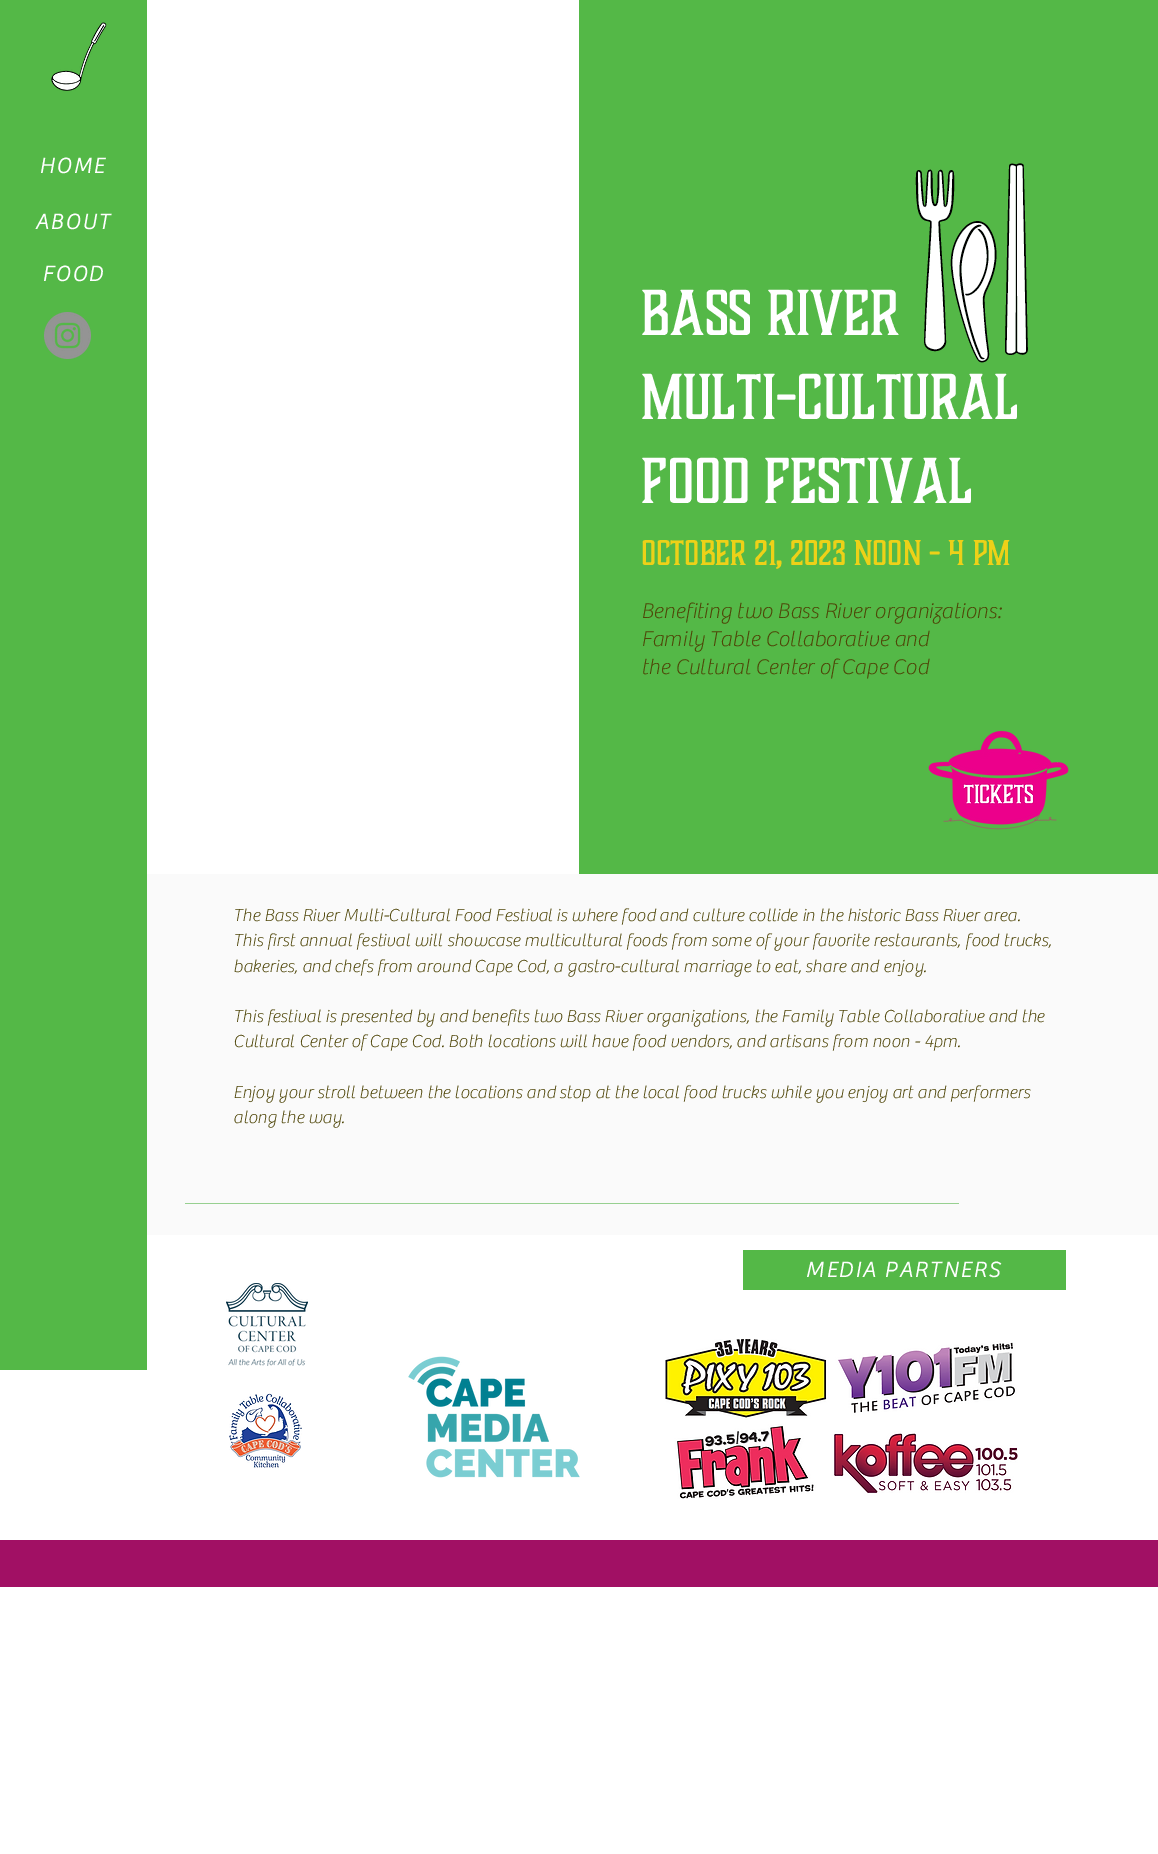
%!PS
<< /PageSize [1158 1854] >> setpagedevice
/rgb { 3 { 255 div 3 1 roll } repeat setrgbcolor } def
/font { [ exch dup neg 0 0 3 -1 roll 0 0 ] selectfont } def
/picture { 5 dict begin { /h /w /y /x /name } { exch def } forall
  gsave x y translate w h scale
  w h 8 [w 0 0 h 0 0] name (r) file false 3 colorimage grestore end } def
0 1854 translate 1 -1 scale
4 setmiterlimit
255 255 255 rgb
0 0 1158 1854 rectfill
84 184 71 rgb
0 0 147 1370 rectfill
(img/1.rgb) 51 22 56 69 picture
(img/2.rgb) 44 312 47 47 picture
579 0 579 874 rectfill
(img/3.rgb) 915 169 40 183 picture
(img/4.rgb) 950 221 47 142 picture
(img/5.rgb) 1005 163 23 192 picture
(img/6.rgb) 928 730 141 100 picture
[
  [147 874 1011 361 250 250 250]
  [185 1203 774 1 151 208 144]
  [743 1250 323 40 84 184 71]
] { aload pop rgb rectfill } forall
(img/7.rgb) 226 1283 82 83 picture
(img/8.rgb) 229 1393 73 75 picture
(img/9.rgb) 408 1356 172 122 picture
(img/10.rgb) 665 1339 353 160 picture
161 16 100 rgb
0 1540 1158 47 rectfill
/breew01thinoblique-Bold 22 font
255 255 255 rgb
39 173 moveto 2.25 0 (HOME) ashow
35 229 moveto 2.25 0 (ABOUT) ashow
42 281 moveto 2.25 0 (FOOD) ashow
/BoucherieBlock-Regular 60 font
[
  [(Bass River) 641 335]
  [(Multi-Cultural) 641 419]
  [(Food Festival) 641 503]
] { aload pop moveto show } forall
/BoucherieBlock-Regular 33 font
237 209 24 rgb
641 565 moveto (October 21, 2023 noon - 4 pm) show
/breew01thinoblique-Thin 22 font
79 70 8 rgb
[
  [(Benefiting two Bass River organizations:) 641 618]
  [(Family Table Collaborative and) 641 646]
  [(the Cultural Center of Cape Cod) 641 674]
] { aload pop moveto show } forall
/breew01thinoblique-Thin 18 font
[
  [(The Bass River Multi-Cultural Food Festival is where food and culture collide in the historic Bass River area.) 233 921]
  [(This first annual festival will showcase multicultural foods from some of your favorite restaurants, food trucks,) 233 946]
  [(bakeries, and chefs from around Cape Cod, a gastro-cultural marriage to eat, share and enjoy.) 233 972]
  [(This festival is presented by and benefits two Bass River organizations, the Family Table Collaborative and the) 233 1022]
  [(Cultural Center of Cape Cod. Both locations will have food vendors, and artisans from noon - 4pm.) 233 1047]
  [(Enjoy your stroll between the locations and stop at the local food trucks while you enjoy art and performers) 233 1098]
  [(along the way.) 233 1123]
] { aload pop moveto show } forall
/breew01thinoblique-Bold 22 font
255 255 255 rgb
805 1277 moveto 2.25 0 (MEDIA PARTNERS) ashow
showpage
